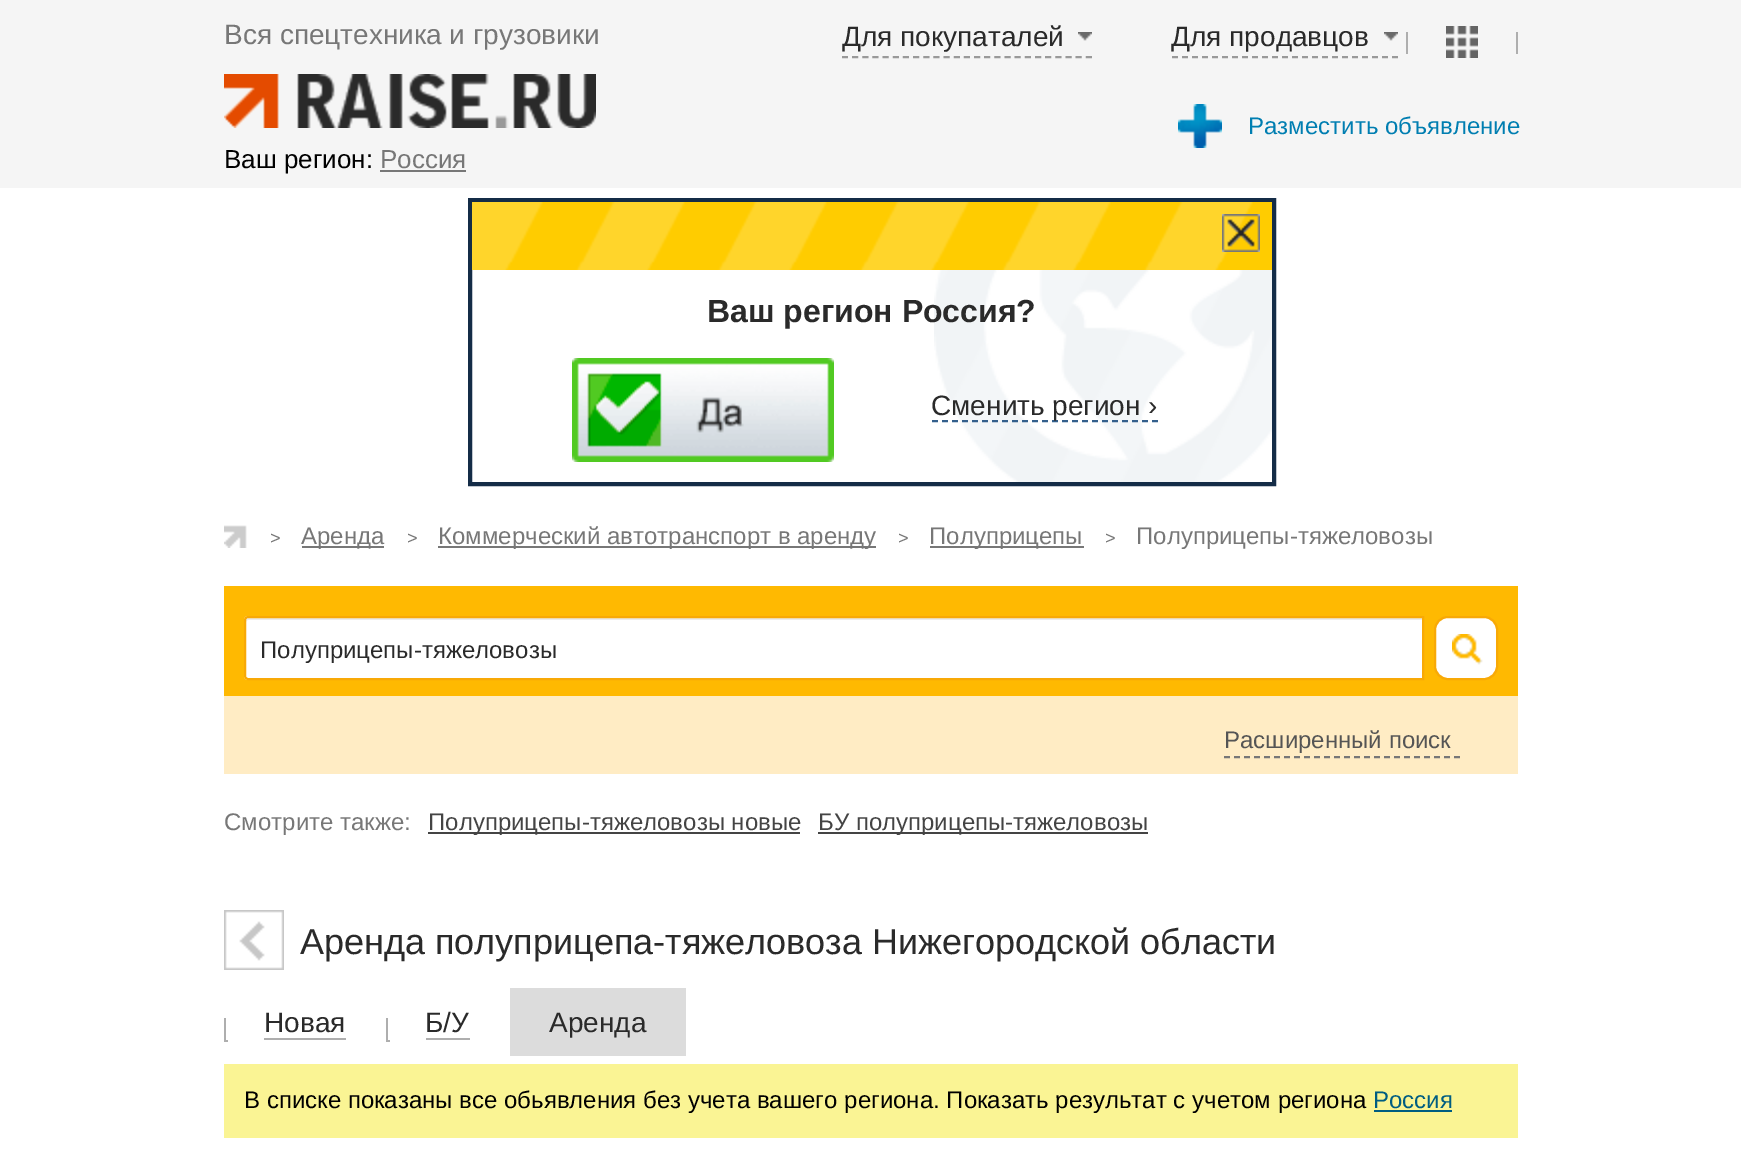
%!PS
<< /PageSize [1741 1162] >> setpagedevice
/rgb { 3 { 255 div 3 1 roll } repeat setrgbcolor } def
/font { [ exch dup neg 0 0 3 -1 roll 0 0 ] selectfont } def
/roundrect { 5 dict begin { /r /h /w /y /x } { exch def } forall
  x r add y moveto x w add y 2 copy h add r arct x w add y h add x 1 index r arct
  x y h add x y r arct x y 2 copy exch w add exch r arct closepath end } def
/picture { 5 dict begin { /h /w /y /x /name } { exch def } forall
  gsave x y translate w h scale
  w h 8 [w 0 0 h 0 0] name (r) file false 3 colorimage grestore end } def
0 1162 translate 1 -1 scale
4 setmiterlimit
255 255 255 rgb
0 0 1741 1162 rectfill
245 245 245 rgb
0 0 1741 188 rectfill
153 153 153 rgb
2 setlinewidth
[6 4.16] 0 setdash
842 57 moveto 1092 57 lineto stroke
(img/1.rgb) 1078 32 14 9 picture
[6 4] 0 setdash
1172 57 moveto 1398 57 lineto stroke
(img/1.rgb) 1384 32 14 9 picture
(img/2.rgb) 1446 26 32 32 picture
174 174 174 rgb
1406 32 2 22 rectfill
1516 32 2 22 rectfill
(img/3.rgb) 224 74 372 54 picture
(img/4.rgb) 1178 104 44 44 picture
119 119 119 rgb
380 170 86 2 rectfill
(img/5.rgb) 934 270 338 212 picture
20 44 71 rgb
4 setlinewidth
[] 0 setdash
470 200 804 284 rectstroke
(img/6.rgb) 472 202 800 68 picture
(img/7.rgb) 1222 214 38 38 picture
(img/8.rgb) 572 358 262 104 picture
51 95 140 rgb
2 setlinewidth
[6 4] 0 setdash
932 421 moveto 1158 421 lineto stroke
(img/9.rgb) 224 525 23 23 picture
[
  [302 546 82 2 119 119 119]
  [438 546 438 2 119 119 119]
  [930 546 154 2 119 119 119]
  [224 586 1294 110 255 185 1]
] { aload pop rgb rectfill } forall
255 255 255 rgb
248 616 moveto 1424 616 lineto 1424 680 lineto 248 680 lineto 246 680 244 678 244 676 curveto 244 620 lineto 244 618 246 616 248 616 curveto closepath fill
236 236 236 rgb
248 620 moveto 1422 620 lineto 1422 618 lineto 248 618 lineto 246 619 lineto 246 622 lineto 246 621 247 620 248 620 curveto closepath fill
248 169 6 rgb
[] 0 setdash
248 617 moveto 1423 617 lineto 1423 679 lineto 248 679 lineto 246.5 679 245 677.5 245 676 curveto 245 620 lineto 245 618.5 246.5 617 248 617 curveto closepath stroke
255 255 255 rgb
1435 617 62 62 13 roundrect gsave fill grestore
248 169 6 rgb
stroke
(img/10.rgb) 1452 634 31 31 picture
255 236 196 rgb
224 696 1294 78 rectfill
119 119 119 rgb
[6 4] 0 setdash
1224 757 moveto 1460 757 lineto stroke
68 68 68 rgb
428 832 372 2 rectfill
818 832 330 2 rectfill
(img/11.rgb) 224 910 60 60 picture
[
  [224 1040 4 2 174 174 174]
  [264 1038 82 2 174 174 174]
  [224 1018 2 22 174 174 174]
  [386 1040 4 2 174 174 174]
  [426 1038 44 2 174 174 174]
  [386 1018 2 22 174 174 174]
  [510 988 176 68 220 220 220]
  [224 1064 1294 74 250 244 148]
  [1374 1110 78 2 0 93 129]
] { aload pop rgb rectfill } forall
/LiberationSans-Regular 28 font
119 119 119 rgb
224 44 moveto (Вся спецтехника и грузовики) show
42 42 42 rgb
842 46 moveto (Для покупаталей) show
1171 46 moveto (Для продавцов) show
/LiberationSans-Regular 24 font
0 126 177 rgb
1248 134 moveto (Разместить объявление) show
/LiberationSans-Regular 26 font
0 0 0 rgb
224 168 moveto (Ваш регион:) show
119 119 119 rgb
380 168 moveto (Россия) show
/LiberationSans-Bold 32 font
42 42 42 rgb
707 322 moveto (Ваш регион Россия?) show
/LiberationSans-Regular 28 font
931 415 moveto (Сменить регион ›) show
/LiberationSans-Regular 18 font
119 119 119 rgb
270 544 moveto (>) show
/LiberationSans-Regular 24 font
301 544 moveto (Аренда) show
/LiberationSans-Regular 18 font
407 544 moveto (>) show
/LiberationSans-Regular 24 font
438 544 moveto (Коммерческий автотранспорт в аренду) show
/LiberationSans-Regular 18 font
898 544 moveto (>) show
/LiberationSans-Regular 24 font
929 544 moveto (Полуприцепы) show
/LiberationSans-Regular 18 font
1105 544 moveto (>) show
/LiberationSans-Regular 24 font
1136 544 moveto (Полуприцепы-тяжеловозы) show
42 42 42 rgb
260 658 moveto (Полуприцепы-тяжеловозы) show
85 85 85 rgb
1224 748 moveto (Расширенный поиск) show
119 119 119 rgb
224 830 moveto (Cмотрите также:) show
68 68 68 rgb
428 830 moveto (Полуприцепы-тяжеловозы новые) show
818 830 moveto (БУ полуприцепы-тяжеловозы) show
/LiberationSans-Regular 36 font
42 42 42 rgb
300 954 moveto (Аренда полуприцепа-тяжеловоза Нижегородской области) show
/LiberationSans-Regular 28 font
[
  [(Новая) 264 1032]
  [(Б/У) 425 1032]
  [(Аренда) 549 1032]
] { aload pop moveto show } forall
/LiberationSans-Regular 24 font
0 0 0 rgb
244 1108 moveto (В списке показаны все обьявления без учета вашего региона. Показать результат с учетом региона) show
0 93 129 rgb
1373 1108 moveto (Россия) show
showpage
